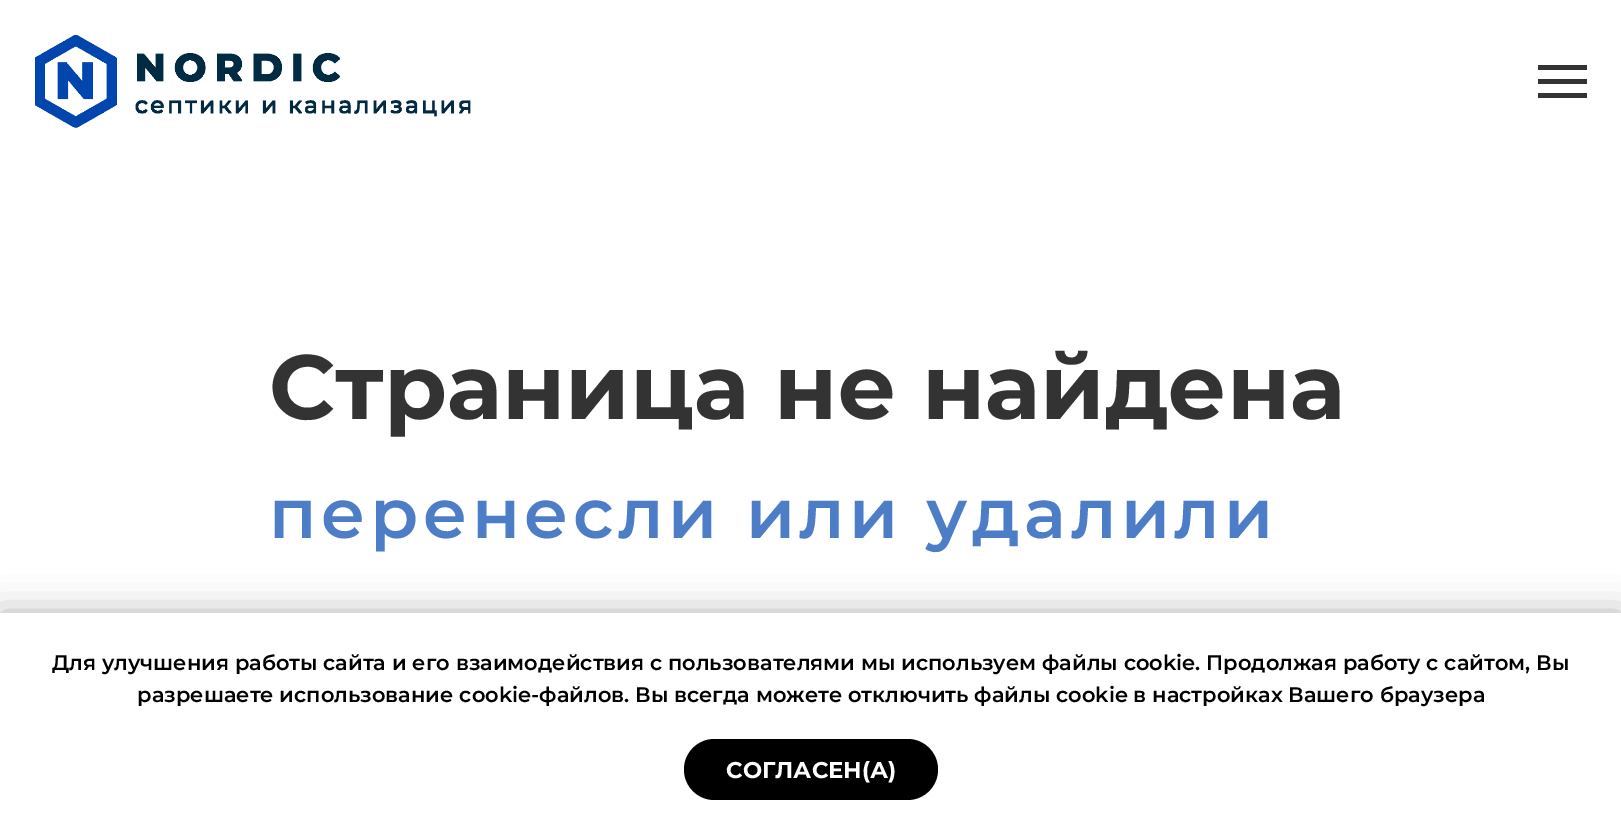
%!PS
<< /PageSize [1621 834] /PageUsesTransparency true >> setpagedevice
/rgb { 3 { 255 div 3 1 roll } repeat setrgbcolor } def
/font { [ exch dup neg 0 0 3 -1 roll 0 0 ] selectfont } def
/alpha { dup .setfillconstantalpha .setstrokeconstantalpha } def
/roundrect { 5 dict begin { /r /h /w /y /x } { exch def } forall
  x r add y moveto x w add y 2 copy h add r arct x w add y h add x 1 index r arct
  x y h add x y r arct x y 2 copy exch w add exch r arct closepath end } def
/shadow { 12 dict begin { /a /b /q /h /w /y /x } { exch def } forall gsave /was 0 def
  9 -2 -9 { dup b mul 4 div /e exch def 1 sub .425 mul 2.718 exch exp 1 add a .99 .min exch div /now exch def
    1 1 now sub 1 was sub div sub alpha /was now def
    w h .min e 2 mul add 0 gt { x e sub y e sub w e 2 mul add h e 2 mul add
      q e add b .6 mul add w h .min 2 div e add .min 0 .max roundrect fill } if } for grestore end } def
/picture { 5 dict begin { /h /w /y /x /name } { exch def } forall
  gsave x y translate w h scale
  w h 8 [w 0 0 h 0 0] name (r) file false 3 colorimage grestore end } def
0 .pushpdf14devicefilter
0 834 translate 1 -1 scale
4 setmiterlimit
255 255 255 rgb
0 0 1621 834 rectfill
(img/1.rgb) 35 35 436 93 picture
[
  [1538 65 49 5 51 51 51]
  [1538 79 49 5 51 51 51]
  [1538 93 49 5 51 51 51]
] { aload pop rgb rectfill } forall
0 0 0 rgb
0 613 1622 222 0 17.5 0.3 shadow
255 255 255 rgb
0 613 1621 221 rectfill
0 0 0 rgb
684 739 254 61 30.5 roundrect fill
/Montserrat-Bold 91 font
51 51 51 rgb
269 419 moveto (Страница не найдена) show
/Montserrat-SemiBold 70 font
76 125 198 rgb
269 538 moveto 4.4 0 (перенесли или удалили) ashow
/Montserrat-SemiBold 21 font
0 0 0 rgb
52 670 moveto (Для улучшения работы сайта и его взаимодействия с пользователями мы используем файлы cookie. Продолжая работу с сайтом, Вы) show
137 702 moveto (разрешаете использование cookie-файлов. Вы всегда можете отключить файлы cookie в настройках Вашего браузера) show
/Montserrat-Bold 22.75 font
255 255 255 rgb
726 778 moveto (СОГЛАСЕН\(А\)) show
.poppdf14devicefilter showpage
